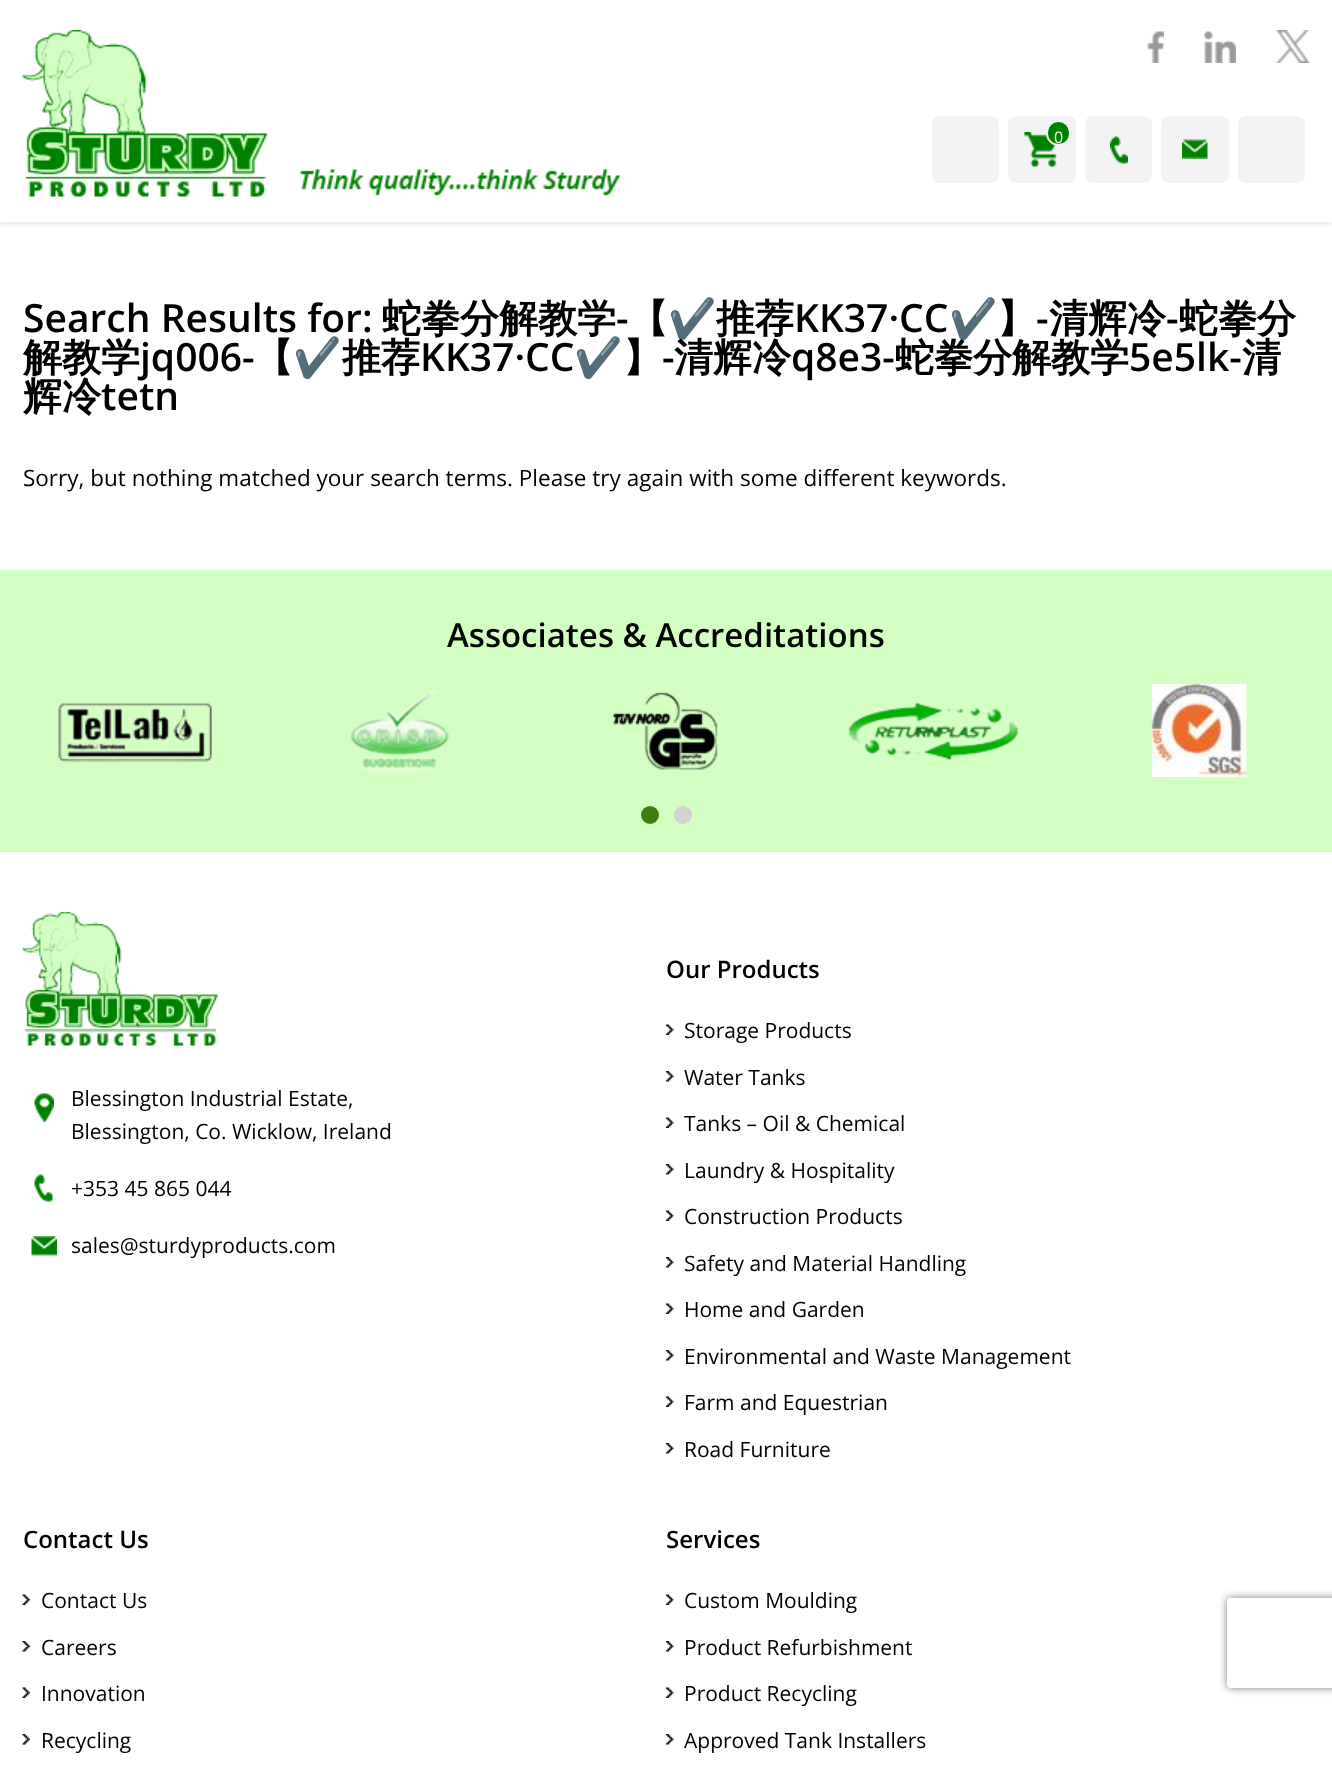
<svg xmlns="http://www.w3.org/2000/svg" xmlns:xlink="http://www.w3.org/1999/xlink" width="1332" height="1772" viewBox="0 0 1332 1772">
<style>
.cls-1{font:16px Open Sans;fill:#ffffff}
.cls-2{font:600 39px Open Sans;fill:#000000}
.cls-3{font:bold 39px WenQuanYi Zen Hei;fill:#000000}
.cls-4{font:bold 39px Noto Color Emoji;fill:#000000}
.cls-5{font:22.5px Open Sans;fill:#000000}
.cls-6{font:600 33px Open Sans;fill:#000000}
.cls-7{font:21px Open Sans;fill:#000000}
.cls-8{font:600 24px Open Sans;fill:#000000}
</style>
<defs>
<clipPath id="clip1"><rect x="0" y="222" width="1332" height="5"/></clipPath>
<clipPath id="clip2"><path d="M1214 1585H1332V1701H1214ZM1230 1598H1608C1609.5 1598 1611 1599.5 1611 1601V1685C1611 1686.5 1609.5 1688 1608 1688H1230C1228.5 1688 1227 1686.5 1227 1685V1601C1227 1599.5 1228.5 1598 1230 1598Z" clip-rule="evenodd"/></clipPath>
</defs>
<rect width="100%" height="100%" fill="#ffffff"/>
<g clip-path="url(#clip1)">
<rect fill="#323232" fill-opacity="0.1" filter="blur(2px)" x="0" y="3" width="1332" height="222"/>
</g>
<image xlink:href="image0.png" x="22" y="30" width="599" height="167"/>
<image xlink:href="image1.png" x="1147" y="31" width="17" height="32"/>
<image xlink:href="image2.png" x="1204" y="31" width="32" height="32"/>
<image xlink:href="image3.png" x="1276" y="30" width="34" height="33"/>
<rect fill="#f2f2f2" x="932" y="116" width="67" height="67" rx="8"/>
<rect fill="#f2f2f2" x="1008" y="116" width="68" height="67" rx="8"/>
<image xlink:href="image4.png" x="1024" y="132" width="33" height="35"/>
<rect fill="#008000" stroke="#f2f2f2" stroke-width="2" x="1047" y="121" width="23" height="24" rx="11.5"/>
<rect fill="#f2f2f2" x="1085" y="116" width="67" height="67" rx="8"/>
<image xlink:href="image5.png" x="1110" y="136" width="18" height="28"/>
<rect fill="#f2f2f2" x="1161" y="116" width="68" height="67" rx="8"/>
<image xlink:href="image6.png" x="1182" y="139" width="26" height="20"/>
<rect fill="#f2f2f2" x="1238" y="116" width="67" height="67" rx="8"/>
<rect fill="#d4ffc2" x="0" y="570" width="1332" height="282"/>
<image xlink:href="image7.png" x="58" y="703" width="155" height="60"/>
<image xlink:href="image8.png" x="340" y="684" width="117" height="87"/>
<image xlink:href="image9.png" x="613" y="692" width="105" height="78"/>
<image xlink:href="image10.png" x="848" y="702" width="171" height="59"/>
<image xlink:href="image11.png" x="1151" y="684" width="96" height="93"/>
<circle fill="#3a800d" cx="650" cy="815" r="9"/>
<circle fill="#d4d2d2" cx="683" cy="815" r="9"/>
<image xlink:href="image12.png" x="22" y="912" width="196" height="134"/>
<image xlink:href="image13.png" x="34" y="1093" width="20" height="29"/>
<image xlink:href="image14.png" x="34" y="1174" width="19" height="28"/>
<image xlink:href="image15.png" x="31" y="1236" width="26" height="20"/>
<image xlink:href="image16.png" x="666" y="1024" width="8" height="11"/>
<image xlink:href="image17.png" x="666" y="1071" width="8" height="11"/>
<image xlink:href="image16.png" x="666" y="1117" width="8" height="11"/>
<image xlink:href="image17.png" x="666" y="1164" width="8" height="11"/>
<image xlink:href="image16.png" x="666" y="1210" width="8" height="11"/>
<image xlink:href="image17.png" x="666" y="1257" width="8" height="11"/>
<image xlink:href="image16.png" x="666" y="1303" width="8" height="11"/>
<image xlink:href="image17.png" x="666" y="1350" width="8" height="11"/>
<image xlink:href="image16.png" x="666" y="1396" width="8" height="11"/>
<image xlink:href="image17.png" x="666" y="1443" width="8" height="11"/>
<image xlink:href="image18.png" x="22" y="1594" width="8" height="11"/>
<image xlink:href="image19.png" x="22" y="1641" width="8" height="11"/>
<image xlink:href="image18.png" x="22" y="1687" width="8" height="11"/>
<image xlink:href="image19.png" x="22" y="1734" width="8" height="11"/>
<image xlink:href="image16.png" x="666" y="1594" width="8" height="11"/>
<image xlink:href="image17.png" x="666" y="1641" width="8" height="11"/>
<image xlink:href="image16.png" x="666" y="1687" width="8" height="11"/>
<image xlink:href="image17.png" x="666" y="1734" width="8" height="11"/>
<g clip-path="url(#clip2)">
<rect fill="#808080" filter="blur(4px)" x="1227" y="1598" width="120" height="90" rx="3"/>
</g>
<text class="cls-1" x="1054" y="143">0</text>
<text class="cls-2" x="23" y="332">Search Results for:</text>
<text class="cls-3" x="382" y="332">蛇拳分解教学</text>
<text class="cls-2" x="616" y="332">-</text>
<text class="cls-3" x="629" y="332">【</text>
<text class="cls-4" x="668" y="332">✔️</text>
<text class="cls-3" x="716" y="332">推荐</text>
<text class="cls-2" x="794" y="332">KK37·CC</text>
<text class="cls-4" x="949" y="332">✔️</text>
<text class="cls-3" x="997" y="332">】</text>
<text class="cls-2" x="1036" y="332">-</text>
<text class="cls-3" x="1049" y="332">清辉冷</text>
<text class="cls-2" x="1166" y="332">-</text>
<text class="cls-3" x="1179" y="332">蛇拳分</text>
<text class="cls-3" x="23" y="371">解教学</text>
<text class="cls-2" x="140" y="371">jq006-</text>
<text class="cls-3" x="254" y="371">【</text>
<text class="cls-4" x="293" y="371">✔️</text>
<text class="cls-3" x="342" y="371">推荐</text>
<text class="cls-2" x="420" y="371">KK37·CC</text>
<text class="cls-4" x="574" y="371">✔️</text>
<text class="cls-3" x="623" y="371">】</text>
<text class="cls-2" x="662" y="371">-</text>
<text class="cls-3" x="674" y="371">清辉冷</text>
<text class="cls-2" x="791" y="371">q8e3-</text>
<text class="cls-3" x="895" y="371">蛇拳分解教学</text>
<text class="cls-2" x="1129" y="371">5e5lk-</text>
<text class="cls-3" x="1242" y="371">清</text>
<text class="cls-3" x="23" y="410">辉冷</text>
<text class="cls-2" x="101" y="410">tetn</text>
<text class="cls-5" x="23" y="486">Sorry, but nothing matched your search terms. Please try again with some different keywords.</text>
<text class="cls-6" x="447" y="647">Associates &amp; Accreditations</text>
<text class="cls-7"><tspan x="71" y="1106">Blessington Industrial Estate,</tspan><tspan x="71" y="1139">Blessington, Co. Wicklow, Ireland</tspan></text>
<text class="cls-7" x="71" y="1196">+353 45 865 044</text>
<text class="cls-7" x="71" y="1253">sales@sturdyproducts.com</text>
<text class="cls-8" x="666" y="978">Our Products</text>
<text class="cls-7" x="684" y="1038">Storage Products</text>
<text class="cls-7" x="684" y="1085">Water Tanks</text>
<text class="cls-7" x="684" y="1131">Tanks – Oil &amp; Chemical</text>
<text class="cls-7" x="684" y="1178">Laundry &amp; Hospitality</text>
<text class="cls-7" x="684" y="1224">Construction Products</text>
<text class="cls-7" x="684" y="1271">Safety and Material Handling</text>
<text class="cls-7" x="684" y="1317">Home and Garden</text>
<text class="cls-7" x="684" y="1364">Environmental and Waste Management</text>
<text class="cls-7" x="684" y="1410">Farm and Equestrian</text>
<text class="cls-7" x="684" y="1457">Road Furniture</text>
<text class="cls-8" x="23" y="1548">Contact Us</text>
<text class="cls-7" x="41" y="1608">Contact Us</text>
<text class="cls-7" x="41" y="1655">Careers</text>
<text class="cls-7" x="41" y="1701">Innovation</text>
<text class="cls-7" x="41" y="1748">Recycling</text>
<text class="cls-8" x="666" y="1548">Services</text>
<text class="cls-7" x="684" y="1608">Custom Moulding</text>
<text class="cls-7" x="684" y="1655">Product Refurbishment</text>
<text class="cls-7" x="684" y="1701">Product Recycling</text>
<text class="cls-7" x="684" y="1748">Approved Tank Installers</text>
</svg>
